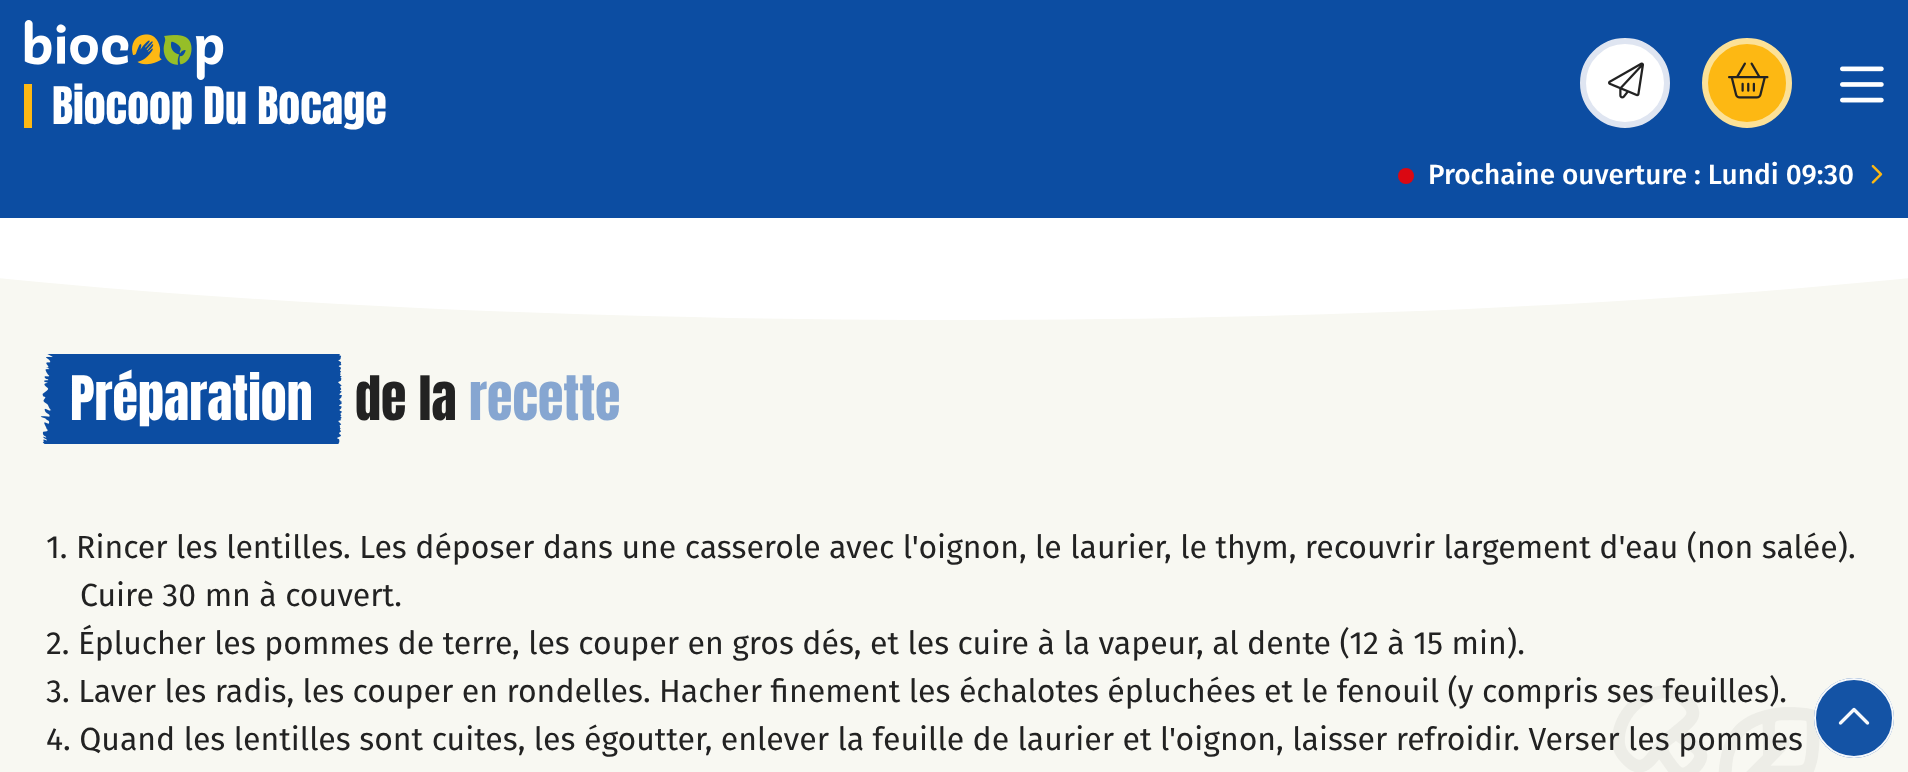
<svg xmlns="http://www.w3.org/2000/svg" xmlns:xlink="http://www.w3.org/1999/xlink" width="1908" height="772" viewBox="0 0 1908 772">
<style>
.cls-1{font:44px Anton;fill:#ffffff}
.cls-2{font:500 28px Fira Sans;fill:#ffffff}
.cls-3{font:52px Anton;fill:#ffffff}
.cls-4{font:52px Anton;fill:#222222}
.cls-5{font:52px Anton;fill:#86a6d1}
.cls-6{font:32px Fira Sans;fill:#222222}
</style>
<rect width="100%" height="100%" fill="#f8f8f2"/>
<ellipse fill="#ffffff" cx="953.5" cy="130" rx="1526" ry="190"/>
<rect fill="#0c4da2" x="0" y="0" width="1908" height="218"/>
<image xlink:href="image0.png" x="24" y="20" width="200" height="60"/>
<rect fill="#fdb813" x="24" y="84" width="8" height="44"/>
<circle fill="#ffffff" stroke="#dfe5f1" stroke-width="6" cx="1625" cy="83" r="42"/>
<image xlink:href="image1.png" x="1608" y="62" width="36" height="37"/>
<circle fill="#fdb813" stroke="#fce197" stroke-width="6" cx="1747" cy="83" r="42"/>
<image xlink:href="image2.png" x="1728" y="62" width="41" height="37"/>
<image xlink:href="image3.png" x="1840" y="66" width="44" height="37"/>
<circle fill="#da0812" cx="1406" cy="176" r="8"/>
<image xlink:href="image4.png" x="1871" y="164" width="12" height="20"/>
<image xlink:href="image6.png" x="40" y="354" width="302" height="90"/>
<text class="cls-1" x="52" y="124">Biocoop Du Bocage</text>
<text class="cls-2" x="1428" y="184">Prochaine ouverture : Lundi 09:30</text>
<text class="cls-3" x="70" y="420">Préparation</text>
<text class="cls-4" x="355" y="420">de la</text>
<text class="cls-5" x="469" y="420">recette</text>
<text class="cls-6" x="46" y="558">1. Rincer les lentilles. Les déposer dans une casserole avec l'oignon, le laurier, le thym, recouvrir largement d'eau (non salée).</text>
<text class="cls-6" x="80" y="606">Cuire 30 mn à couvert.</text>
<text class="cls-6"><tspan x="46" y="654">2. Éplucher les pommes de terre, les couper en gros dés, et les cuire à la vapeur, al dente (12 à 15 min).</tspan><tspan x="46" y="702">3. Laver les radis, les couper en rondelles. Hacher finement les échalotes épluchées et le fenouil (y compris ses feuilles).</tspan><tspan x="46" y="750">4. Quand les lentilles sont cuites, les égoutter, enlever la feuille de laurier et l'oignon, laisser refroidir. Verser les pommes</tspan></text>
<image xlink:href="image7.png" x="1612" y="685" width="208" height="87"/>
<circle fill="#0c4da2" fill-opacity="0.97" cx="1854" cy="718" r="40"/>
<circle fill="none" stroke="#ffffff" stroke-opacity="0.97" stroke-width="2" cx="1854" cy="718" r="39"/>
<image xlink:href="image5.png" x="1838" y="707" width="32" height="18"/>
</svg>
